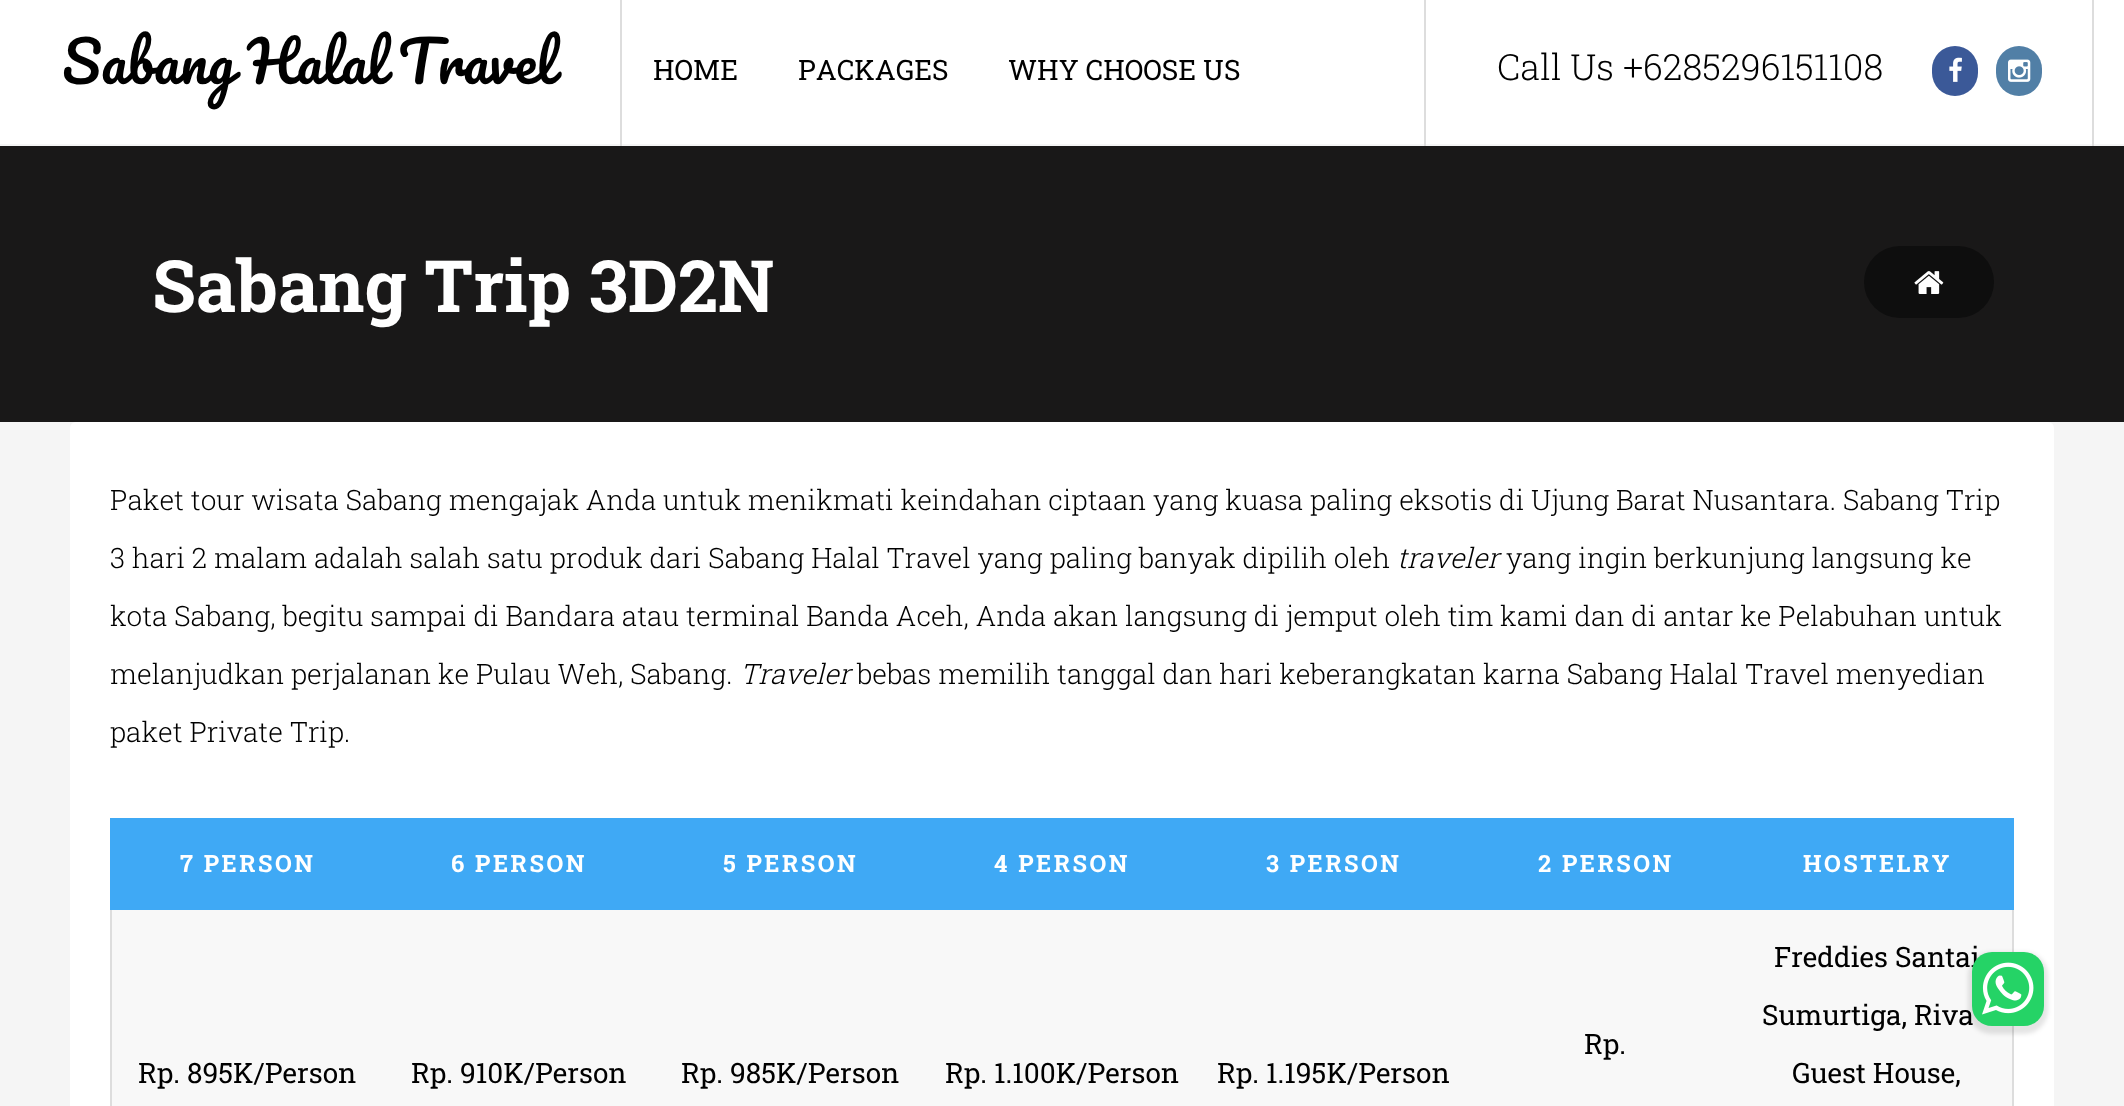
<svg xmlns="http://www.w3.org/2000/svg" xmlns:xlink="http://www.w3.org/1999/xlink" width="2124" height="1106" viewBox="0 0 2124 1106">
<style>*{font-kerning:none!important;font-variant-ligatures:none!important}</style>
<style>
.cls-1{font:56px Pacifico;fill:#000000}
.cls-2{font:28px Roboto Slab;fill:#000000}
.cls-3{font:300 36px Roboto Slab;fill:#000000}
.cls-4{font:bold 72px Roboto Slab;fill:#ffffff}
.cls-5{font:300 28px Roboto Slab;fill:#000000}
.cls-6{font:italic 300 28px Roboto Slab;fill:#000000}
.cls-7{font:bold 23.75px Roboto Slab;letter-spacing:2.5px;fill:#ffffff}
</style>
<rect width="100%" height="100%" fill="#f5f5f5"/>
<rect fill="#ffffff" x="0" y="0" width="2124" height="144"/>
<rect fill="#dddddd" x="620" y="0" width="2" height="146"/>
<rect fill="#dddddd" x="2092" y="0" width="2" height="146"/>
<rect fill="#dddddd" x="1424" y="0" width="2" height="146"/>
<rect fill="#3b5998" x="1932" y="46" width="46" height="50" rx="23"/>
<image xlink:href="image0.png" x="1949" y="57" width="13" height="25"/>
<rect fill="#517fa6" x="1996" y="46" width="46" height="50" rx="23"/>
<image xlink:href="image1.png" x="2008" y="59" width="23" height="23"/>
<rect fill="#191818" x="0" y="146" width="2124" height="276"/>
<rect fill="#0e0e0e" x="1864" y="246" width="130" height="72" rx="36"/>
<image xlink:href="image2.png" x="1914" y="271" width="30" height="23"/>
<rect fill="#ffffff" x="70" y="422" width="1984" height="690" rx="6"/>
<rect fill="#3fa9f5" x="112" y="820" width="1900" height="88"/>
<rect fill="#3fa9f5" x="110" y="818" width="1904" height="2"/>
<rect fill="#dddddd" x="2012" y="908" width="2" height="198"/>
<rect fill="#3fa9f5" x="2012" y="818" width="2" height="92"/>
<rect fill="#dddddd" x="110" y="908" width="2" height="198"/>
<rect fill="#3fa9f5" x="110" y="908" width="1904" height="2"/>
<rect fill="#3fa9f5" x="110" y="818" width="2" height="92"/>
<rect fill="#f8f8f8" x="112" y="910" width="1900" height="196"/>
<rect fill="#000000" fill-opacity="0.1" filter="blur(2px)" x="1968" y="952" width="80" height="82" rx="24"/>
<text class="cls-1" x="62" y="84" word-spacing="-2">Sabang Halal Travel</text>
<text class="cls-2" x="653" y="80">HOME</text>
<text class="cls-2" x="798" y="80">PACKAGES</text>
<text class="cls-2" x="1008" y="80">WHY CHOOSE US</text>
<text class="cls-3" x="1497" y="80">Call Us +6285296151108</text>
<text class="cls-4" x="152" y="312">Sabang Trip 3D2N</text>
<text class="cls-5" x="110" y="510">Paket tour wisata Sabang mengajak Anda untuk menikmati keindahan ciptaan yang kuasa paling eksotis di Ujung Barat Nusantara. Sabang Trip</text>
<text class="cls-5" x="110" y="568">3 hari 2 malam adalah salah satu produk dari Sabang Halal Travel yang paling banyak dipilih oleh</text>
<text class="cls-6" x="1397" y="568">traveler</text>
<text class="cls-5" x="1506" y="568">yang ingin berkunjung langsung ke</text>
<text class="cls-5" x="110" y="626">kota Sabang, begitu sampai di Bandara atau terminal Banda Aceh, Anda akan langsung di jemput oleh tim kami dan di antar ke Pelabuhan untuk</text>
<text class="cls-5" x="110" y="684">melanjudkan perjalanan ke Pulau Weh, Sabang.</text>
<text class="cls-6" x="740" y="684">Traveler</text>
<text class="cls-5" x="857" y="684">bebas memilih tanggal dan hari keberangkatan karna Sabang Halal Travel menyedian</text>
<text class="cls-5" x="110" y="742">paket Private Trip.</text>
<text class="cls-7" x="180" y="872">7 PERSON</text>
<text class="cls-7" x="451" y="872">6 PERSON</text>
<text class="cls-7" x="723" y="872">5 PERSON</text>
<text class="cls-7" x="994" y="872">4 PERSON</text>
<text class="cls-7" x="1266" y="872">3 PERSON</text>
<text class="cls-7" x="1538" y="872">2 PERSON</text>
<text class="cls-7" x="1803" y="872">HOSTELRY</text>
<text class="cls-2" x="1584" y="1054">Rp.</text>
<text class="cls-2" x="1774" y="967">Freddies Santai</text>
<text class="cls-2" x="1762" y="1025">Sumurtiga, Riva</text>
<text class="cls-2" x="1792" y="1083">Guest House,</text>
<text class="cls-2" x="138" y="1083">Rp. 895K/Person</text>
<text class="cls-2" x="411" y="1083">Rp. 910K/Person</text>
<text class="cls-2" x="681" y="1083">Rp. 985K/Person</text>
<text class="cls-2" x="945" y="1083">Rp. 1.100K/Person</text>
<text class="cls-2" x="1217" y="1083">Rp. 1.195K/Person</text>
<rect fill="#25d366" x="1972" y="952" width="72" height="74" rx="20"/>
<image xlink:href="image3.png" x="1982" y="962" width="52" height="53"/>
</svg>
